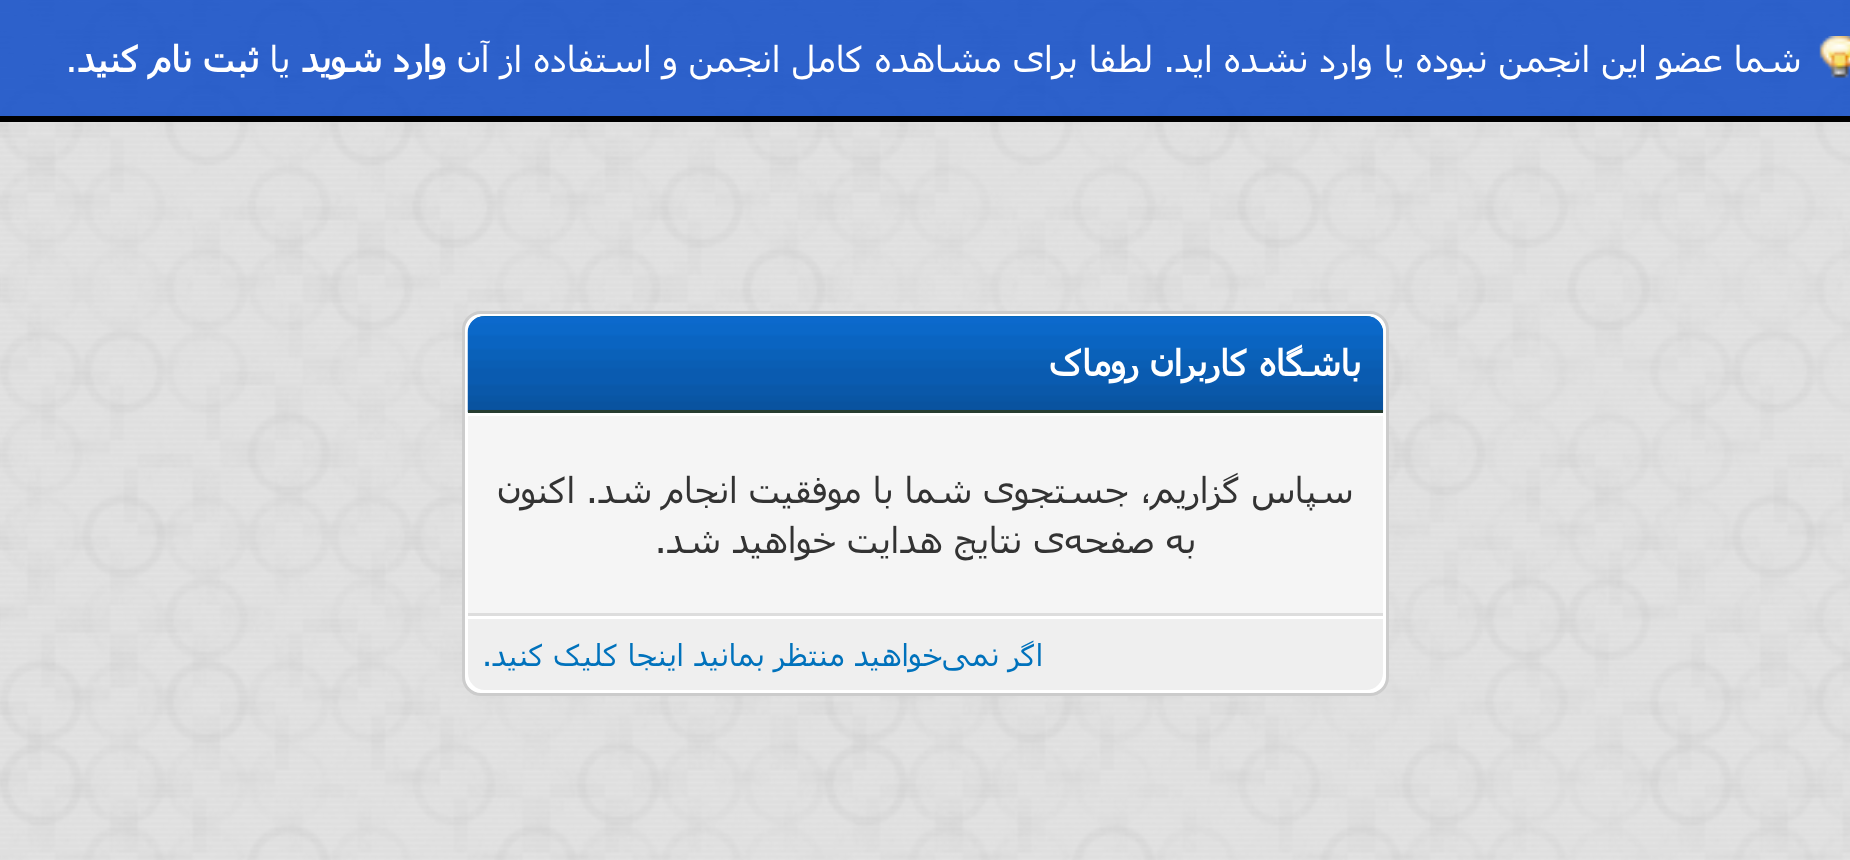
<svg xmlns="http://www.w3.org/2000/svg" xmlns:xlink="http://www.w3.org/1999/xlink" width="1850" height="860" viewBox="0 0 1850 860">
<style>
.cls-1{font:35.75px Tahoma;direction:rtl;fill:#ffffff}
.cls-2{font:bold 35.75px Tahoma;direction:rtl;fill:#ffffff}
.cls-3{font:35.75px Tahoma;fill:#ffffff}
.cls-4{font:35.75px Tahoma;direction:rtl;fill:#333333}
.cls-5{font:30.25px Tahoma;direction:rtl;fill:#0072bc}
</style>
<rect width="100%" height="100%" fill="#ffffff"/>
<image xlink:href="image0.png" x="0" y="0" width="1850" height="860"/>
<rect fill="#0041c6" fill-opacity="0.8" x="0" y="0" width="1850" height="116"/>
<rect fill="#000000" x="0" y="116" width="1850" height="6"/>
<image xlink:href="image1.png" x="1819" y="36" width="31" height="42"/>
<rect fill="#ffffff" stroke="#cccccc" stroke-width="3" x="463.5" y="312.5" width="924" height="382" rx="17.5"/>
<path fill="#0066a2" d="M485 316H1366C1375.5 316 1383 323.5 1383 333V413H468V333C468 323.5 475.5 316 485 316Z"/>
<image xlink:href="image2.png" x="467" y="316" width="917" height="97"/>
<rect fill="#263c30" x="468" y="410" width="915" height="3"/>
<rect fill="#f5f5f5" x="468" y="416" width="915" height="197"/>
<rect fill="#dddddd" x="468" y="613" width="915" height="3"/>
<path fill="#efefef" d="M468 616H1383V673C1383 682.5 1375.5 690 1366 690H485C475.5 690 468 682.5 468 673Z"/>
<rect fill="#ffffff" x="468" y="616" width="915" height="3"/>
<text class="cls-1" x="1801" y="72">شما عضو این انجمن نبوده یا وارد نشده اید. لطفا برای مشاهده کامل انجمن و استفاده از آن</text>
<text class="cls-2" x="446" y="72">وارد شوید</text>
<text class="cls-1" x="290" y="72">یا</text>
<text class="cls-2" x="259" y="72">ثبت نام کنید</text>
<text class="cls-3" x="66" y="72">.</text>
<text class="cls-2" x="1361" y="376">باشگاه کاربران روماک</text>
<text class="cls-4" x="1353" y="503">سپاس گزاریم، جستجوی شما با موفقیت انجام شد. اکنون</text>
<text class="cls-4" x="1196" y="553">به صفحه‌ی نتایج هدایت خواهید شد.</text>
<text class="cls-5" x="1043" y="666">اگر نمی‌خواهید منتظر بمانید اینجا کلیک کنید.</text>
</svg>
